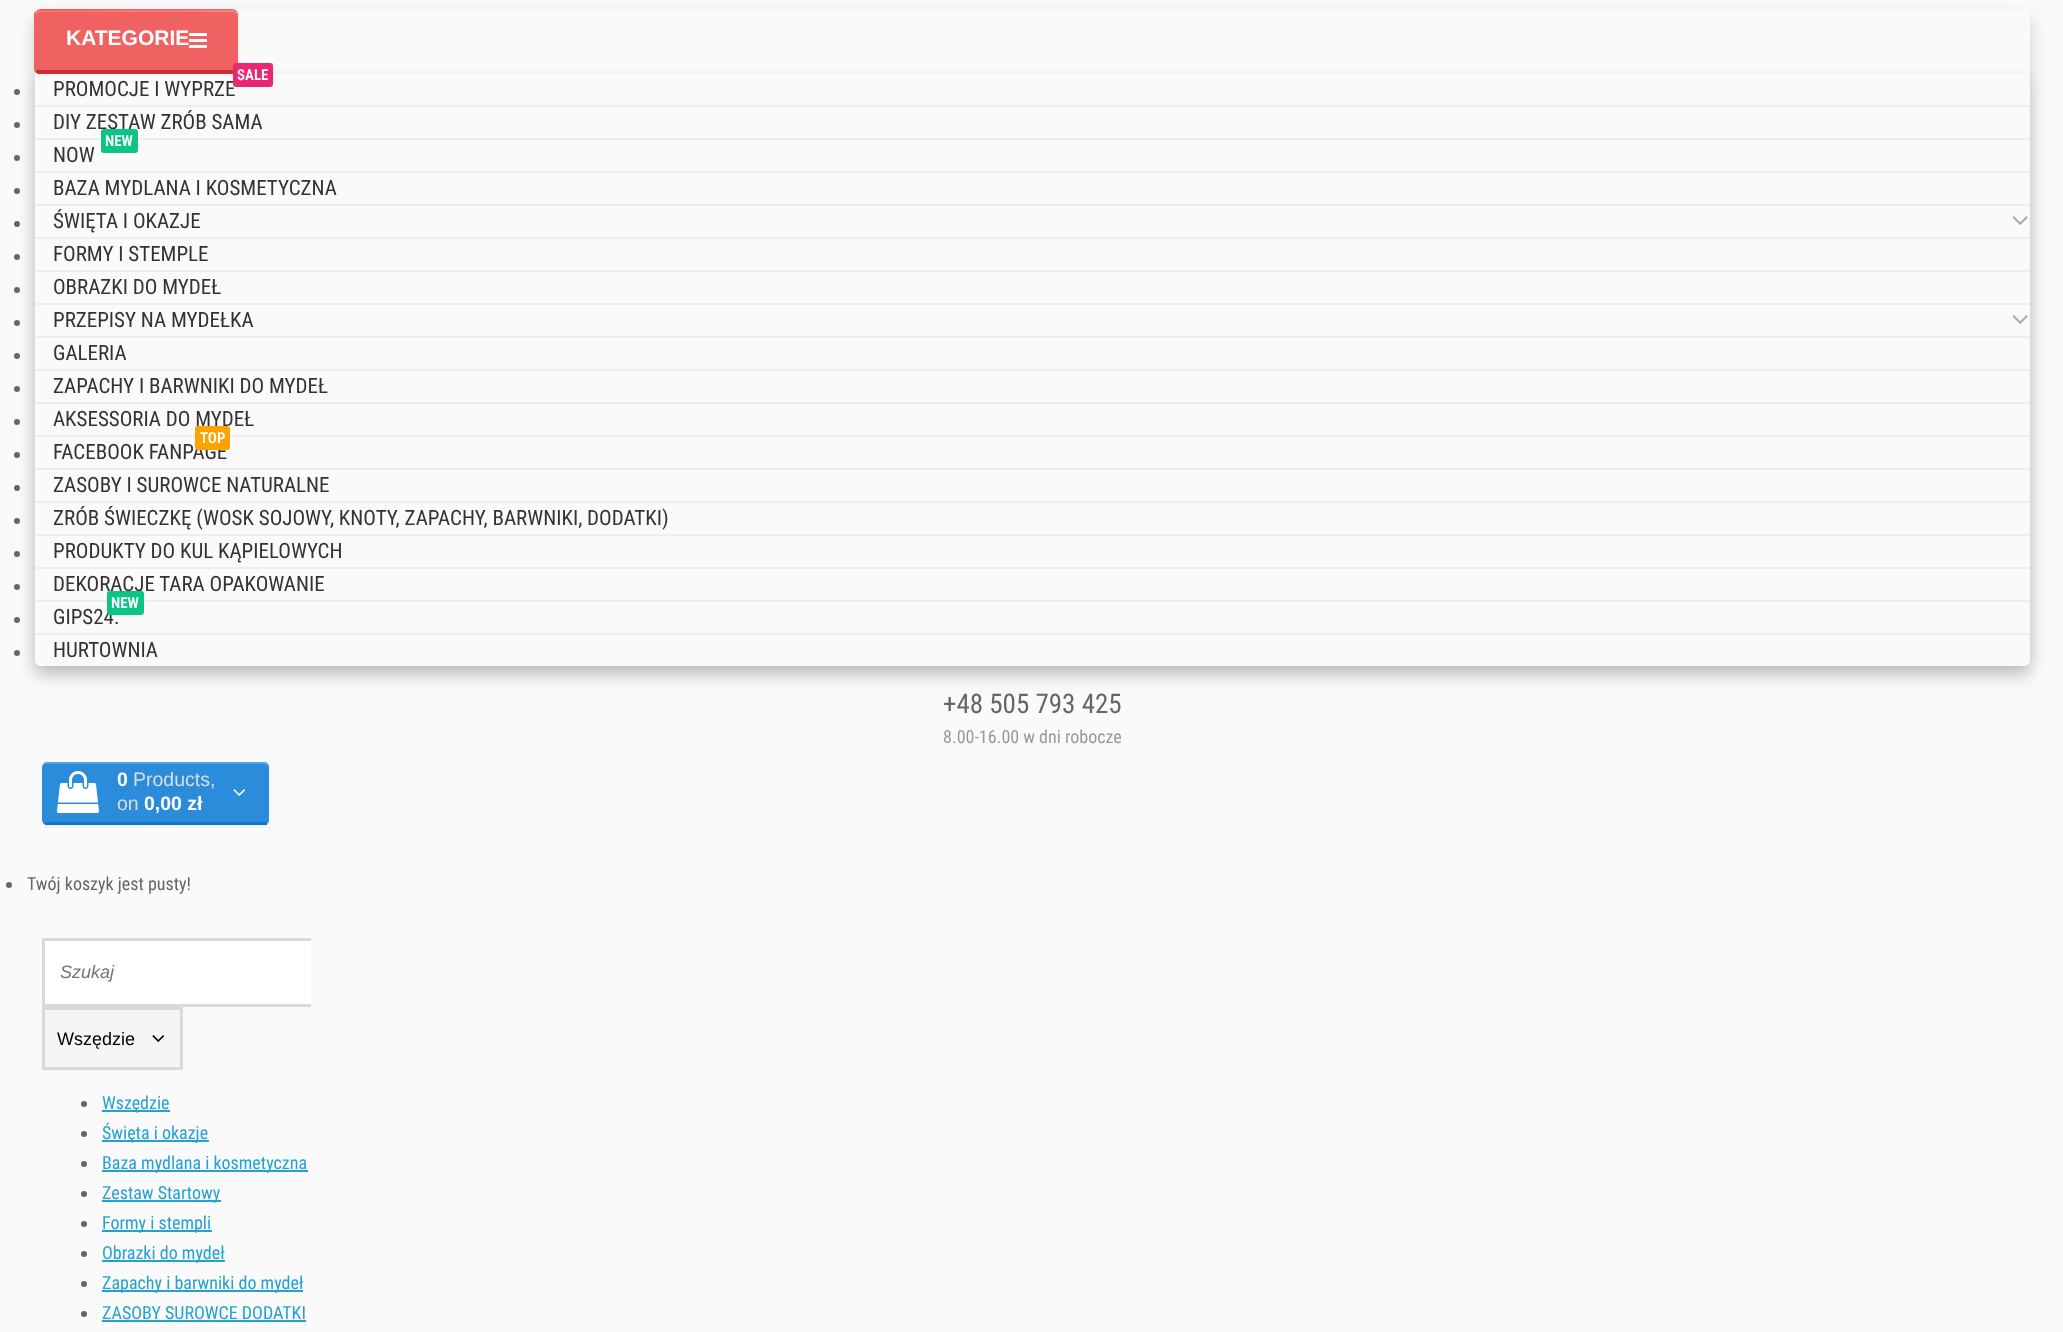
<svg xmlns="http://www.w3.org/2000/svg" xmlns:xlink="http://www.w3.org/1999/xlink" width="2063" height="1332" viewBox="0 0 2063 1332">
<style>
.cls-1{font:bold 21px Liberation Sans;fill:#ffffff}
.cls-2{font:21px Roboto Condensed;fill:#333333}
.cls-3{font:600 15px Roboto Condensed;fill:#ffffff}
.cls-4{font:27px Roboto Condensed;fill:#666666}
.cls-5{font:18px Roboto Condensed;fill:#999999}
.cls-6{font:bold 19.5px Liberation Sans;fill:#ffffff}
.cls-7{font:19.5px Liberation Sans;fill:#dddddd}
.cls-8{font:18px Roboto Condensed;fill:#666666}
.cls-9{font:italic 18px Liberation Sans;fill:#757575}
.cls-10{font:18px Liberation Sans;fill:#000000}
.cls-11{font:18px Roboto Condensed;fill:#23a1d1}
</style>
<defs>
<clipPath id="clip1"><path d="M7 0H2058V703H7ZM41 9H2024C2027.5 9 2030 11.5 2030 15V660C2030 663.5 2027.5 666 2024 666H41C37.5 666 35 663.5 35 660V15C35 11.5 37.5 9 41 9Z" clip-rule="evenodd"/></clipPath>
<clipPath id="clip2"><path d="M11 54H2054V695H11ZM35 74H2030V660C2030 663.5 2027.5 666 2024 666H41C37.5 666 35 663.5 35 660Z" clip-rule="evenodd"/></clipPath>
</defs>
<rect width="100%" height="100%" fill="#fafafa"/>
<g clip-path="url(#clip1)">
<rect fill="#000000" fill-opacity="0.18" filter="blur(9px)" x="35" y="18" width="1995" height="657" rx="6"/>
</g>
<rect fill="#000000" fill-opacity="0.05" filter="blur(1.5px)" x="35" y="11" width="204" height="64" rx="6"/>
<g clip-path="url(#clip2)">
<rect fill="#000000" fill-opacity="0.1" filter="blur(7.5px)" x="35" y="78" width="1995" height="593" rx="6"/>
</g>
<path fill="#f06262" d="M40 10H232C235 10 237 13 237 15V68C237 69 235 70 232 70H40C38 70 36 69 36 68V15C36 13 38 10 40 10Z"/>
<path fill="#ffffff" fill-opacity="0.2" d="M40 12H232C235 12 237 14 237 16C237 13 236 11 232 10L40 11C37 11 36 14 36 16C36 14 38 12 40 12Z"/>
<path fill="#f06262" d="M40 9C39 9 37 10 36 11L37 12C38 11 39 10 40 10H233L236 12L237 11C236 10 234 9 232 9Z"/>
<path fill="#f06262" d="M237 11L238 14V59C238 61 239 68 237 71L236 69L237 68V15C237 14 237 13 236 12Z"/>
<path fill="#ca3030" d="M38 74L35 72L37 69L40 70H232L236 69L237 71L235 74Z"/>
<path fill="#f06262" d="M34 13L36 11L37 12C36 13 36 14 36 15V68L37 69L35 72L34 70Z"/>
<image xlink:href="image0.png" x="189" y="33" width="18" height="15"/>
<circle fill="#666666" cx="17" cy="92" r="3"/>
<rect fill="#eeeeee" x="35" y="105" width="1995" height="2"/>
<circle fill="#666666" cx="17" cy="125" r="3"/>
<rect fill="#eeeeee" x="35" y="138" width="1995" height="2"/>
<circle fill="#666666" cx="17" cy="158" r="3"/>
<rect fill="#eeeeee" x="35" y="171" width="1995" height="2"/>
<circle fill="#666666" cx="17" cy="191" r="3"/>
<rect fill="#eeeeee" x="35" y="204" width="1995" height="2"/>
<circle fill="#666666" cx="17" cy="224" r="3"/>
<image xlink:href="image1.png" x="2012" y="216" width="16" height="9"/>
<rect fill="#eeeeee" x="35" y="237" width="1995" height="2"/>
<circle fill="#666666" cx="17" cy="257" r="3"/>
<rect fill="#eeeeee" x="35" y="270" width="1995" height="2"/>
<circle fill="#666666" cx="17" cy="290" r="3"/>
<rect fill="#eeeeee" x="35" y="303" width="1995" height="2"/>
<circle fill="#666666" cx="17" cy="323" r="3"/>
<image xlink:href="image1.png" x="2012" y="315" width="16" height="9"/>
<rect fill="#eeeeee" x="35" y="336" width="1995" height="2"/>
<circle fill="#666666" cx="17" cy="356" r="3"/>
<rect fill="#eeeeee" x="35" y="369" width="1995" height="2"/>
<circle fill="#666666" cx="17" cy="389" r="3"/>
<rect fill="#eeeeee" x="35" y="402" width="1995" height="2"/>
<circle fill="#666666" cx="17" cy="422" r="3"/>
<rect fill="#eeeeee" x="35" y="435" width="1995" height="2"/>
<circle fill="#666666" cx="17" cy="455" r="3"/>
<rect fill="#eeeeee" x="35" y="468" width="1995" height="2"/>
<circle fill="#666666" cx="17" cy="488" r="3"/>
<rect fill="#eeeeee" x="35" y="501" width="1995" height="2"/>
<circle fill="#666666" cx="17" cy="521" r="3"/>
<rect fill="#eeeeee" x="35" y="534" width="1995" height="2"/>
<circle fill="#666666" cx="17" cy="554" r="3"/>
<rect fill="#eeeeee" x="35" y="567" width="1995" height="2"/>
<circle fill="#666666" cx="17" cy="587" r="3"/>
<rect fill="#eeeeee" x="35" y="600" width="1995" height="2"/>
<circle fill="#666666" cx="17" cy="620" r="3"/>
<rect fill="#eeeeee" x="35" y="633" width="1995" height="2"/>
<circle fill="#666666" cx="17" cy="653" r="3"/>
<rect fill="#000000" fill-opacity="0.05" filter="blur(1.5px)" x="42" y="764" width="227" height="63" rx="5"/>
<rect fill="#2b8cdb" x="42" y="762" width="227" height="63" rx="5"/>
<path fill="#ffffff" fill-opacity="0.2" d="M46 764H264C266 764 268 766 268 768V821V820V766C268 764 266 762 264 762H46C44 762 42 764 42 766V768C42 766 44 764 46 764Z"/>
<rect fill="#1475c4" x="45" y="822" width="222" height="3"/>
<image xlink:href="image2.png" x="57" y="771" width="42" height="42"/>
<image xlink:href="image3.png" x="233" y="789" width="12" height="7"/>
<circle fill="#666666" cx="9" cy="885" r="3"/>
<rect fill="#ffffff" x="45" y="941" width="266" height="63"/>
<rect fill="#d9d9d9" x="42" y="938" width="269" height="3"/>
<rect fill="#d9d9d9" x="42" y="1004" width="269" height="3"/>
<rect fill="#d9d9d9" x="42" y="938" width="3" height="69"/>
<rect fill="#f5f5f5" stroke="#d9d9d9" stroke-width="3" x="43.5" y="1008.5" width="138" height="60"/>
<image xlink:href="image4.png" x="152" y="1035" width="12" height="7"/>
<circle fill="#666666" cx="84" cy="1104" r="3"/>
<rect fill="#23a1d1" x="102" y="1110" width="68" height="2"/>
<circle fill="#666666" cx="84" cy="1134" r="3"/>
<rect fill="#23a1d1" x="102" y="1140" width="107" height="2"/>
<circle fill="#666666" cx="84" cy="1164" r="3"/>
<rect fill="#23a1d1" x="102" y="1170" width="206" height="2"/>
<circle fill="#666666" cx="84" cy="1194" r="3"/>
<rect fill="#23a1d1" x="102" y="1200" width="119" height="2"/>
<circle fill="#666666" cx="84" cy="1224" r="3"/>
<rect fill="#23a1d1" x="102" y="1230" width="110" height="2"/>
<circle fill="#666666" cx="84" cy="1254" r="3"/>
<rect fill="#23a1d1" x="102" y="1260" width="123" height="2"/>
<circle fill="#666666" cx="84" cy="1284" r="3"/>
<rect fill="#23a1d1" x="102" y="1290" width="201" height="2"/>
<circle fill="#666666" cx="84" cy="1314" r="3"/>
<rect fill="#23a1d1" x="102" y="1320" width="204" height="2"/>
<text class="cls-1" x="66" y="45">KATEGORIE</text>
<text class="cls-2" x="53" y="96">PROMOCJE I WYPRZE</text>
<rect fill="#eb2771" x="233" y="63" width="40" height="24" rx="3"/>
<text class="cls-3" x="237" y="80">SALE</text>
<text class="cls-2" x="53" y="129">DIY ZESTAW ZRÓB SAMA</text>
<rect fill="#0cc485" x="101" y="129" width="37" height="24" rx="3"/>
<text class="cls-3" x="105" y="146">NEW</text>
<text class="cls-2"><tspan x="53" y="162">NOW</tspan><tspan x="53" y="195">BAZA MYDLANA I KOSMETYCZNA</tspan><tspan x="53" y="228">ŚWIĘTA I OKAZJE</tspan><tspan x="53" y="261">FORMY I STEMPLE</tspan><tspan x="53" y="294">OBRAZKI DO MYDEŁ</tspan><tspan x="53" y="327">PRZEPISY NA MYDEŁKA</tspan><tspan x="53" y="360">GALERIA</tspan><tspan x="53" y="393">ZAPACHY I BARWNIKI DO MYDEŁ</tspan><tspan x="53" y="426">AKSESSORIA DO MYDEŁ</tspan><tspan x="53" y="459">FACEBOOK FANPAGE</tspan></text>
<rect fill="#ffa200" x="195" y="426" width="35" height="24" rx="3"/>
<text class="cls-3" x="200" y="443">TOP</text>
<text class="cls-2"><tspan x="53" y="492">ZASOBY I SUROWCE NATURALNE</tspan><tspan x="53" y="525">ZRÓB ŚWIECZKĘ (WOSK SOJOWY, KNOTY, ZAPACHY, BARWNIKI, DODATKI)</tspan><tspan x="53" y="558">PRODUKTY DO KUL KĄPIELOWYCH</tspan><tspan x="53" y="591">DEKORACJE TARA OPAKOWANIE</tspan><tspan x="53" y="624">GIPS24.</tspan></text>
<rect fill="#0cc485" x="107" y="591" width="37" height="24" rx="3"/>
<text class="cls-3" x="111" y="608">NEW</text>
<text class="cls-2" x="53" y="657">HURTOWNIA</text>
<text class="cls-4" x="943" y="713">+48 505 793 425</text>
<text class="cls-5" x="943" y="743">8.00-16.00 w dni robocze</text>
<text class="cls-6" x="117" y="786">0</text>
<text class="cls-7" x="133" y="786">Products,</text>
<text class="cls-7" x="117" y="810">on</text>
<text class="cls-6" x="144" y="810">0,00 zł</text>
<text class="cls-8" x="27" y="890">Twój koszyk jest pusty!</text>
<text class="cls-9" x="60" y="978">Szukaj</text>
<text class="cls-10" x="57" y="1045">Wszędzie</text>
<text class="cls-11"><tspan x="102" y="1109">Wszędzie</tspan><tspan x="102" y="1139">Święta i okazje</tspan><tspan x="102" y="1169">Baza mydlana i kosmetyczna</tspan><tspan x="102" y="1199">Zestaw Startowy</tspan><tspan x="102" y="1229">Formy i stempli</tspan><tspan x="102" y="1259">Obrazki do mydeł</tspan><tspan x="102" y="1289">Zapachy i barwniki do mydeł</tspan><tspan x="102" y="1319">ZASOBY SUROWCE DODATKI</tspan></text>
</svg>
